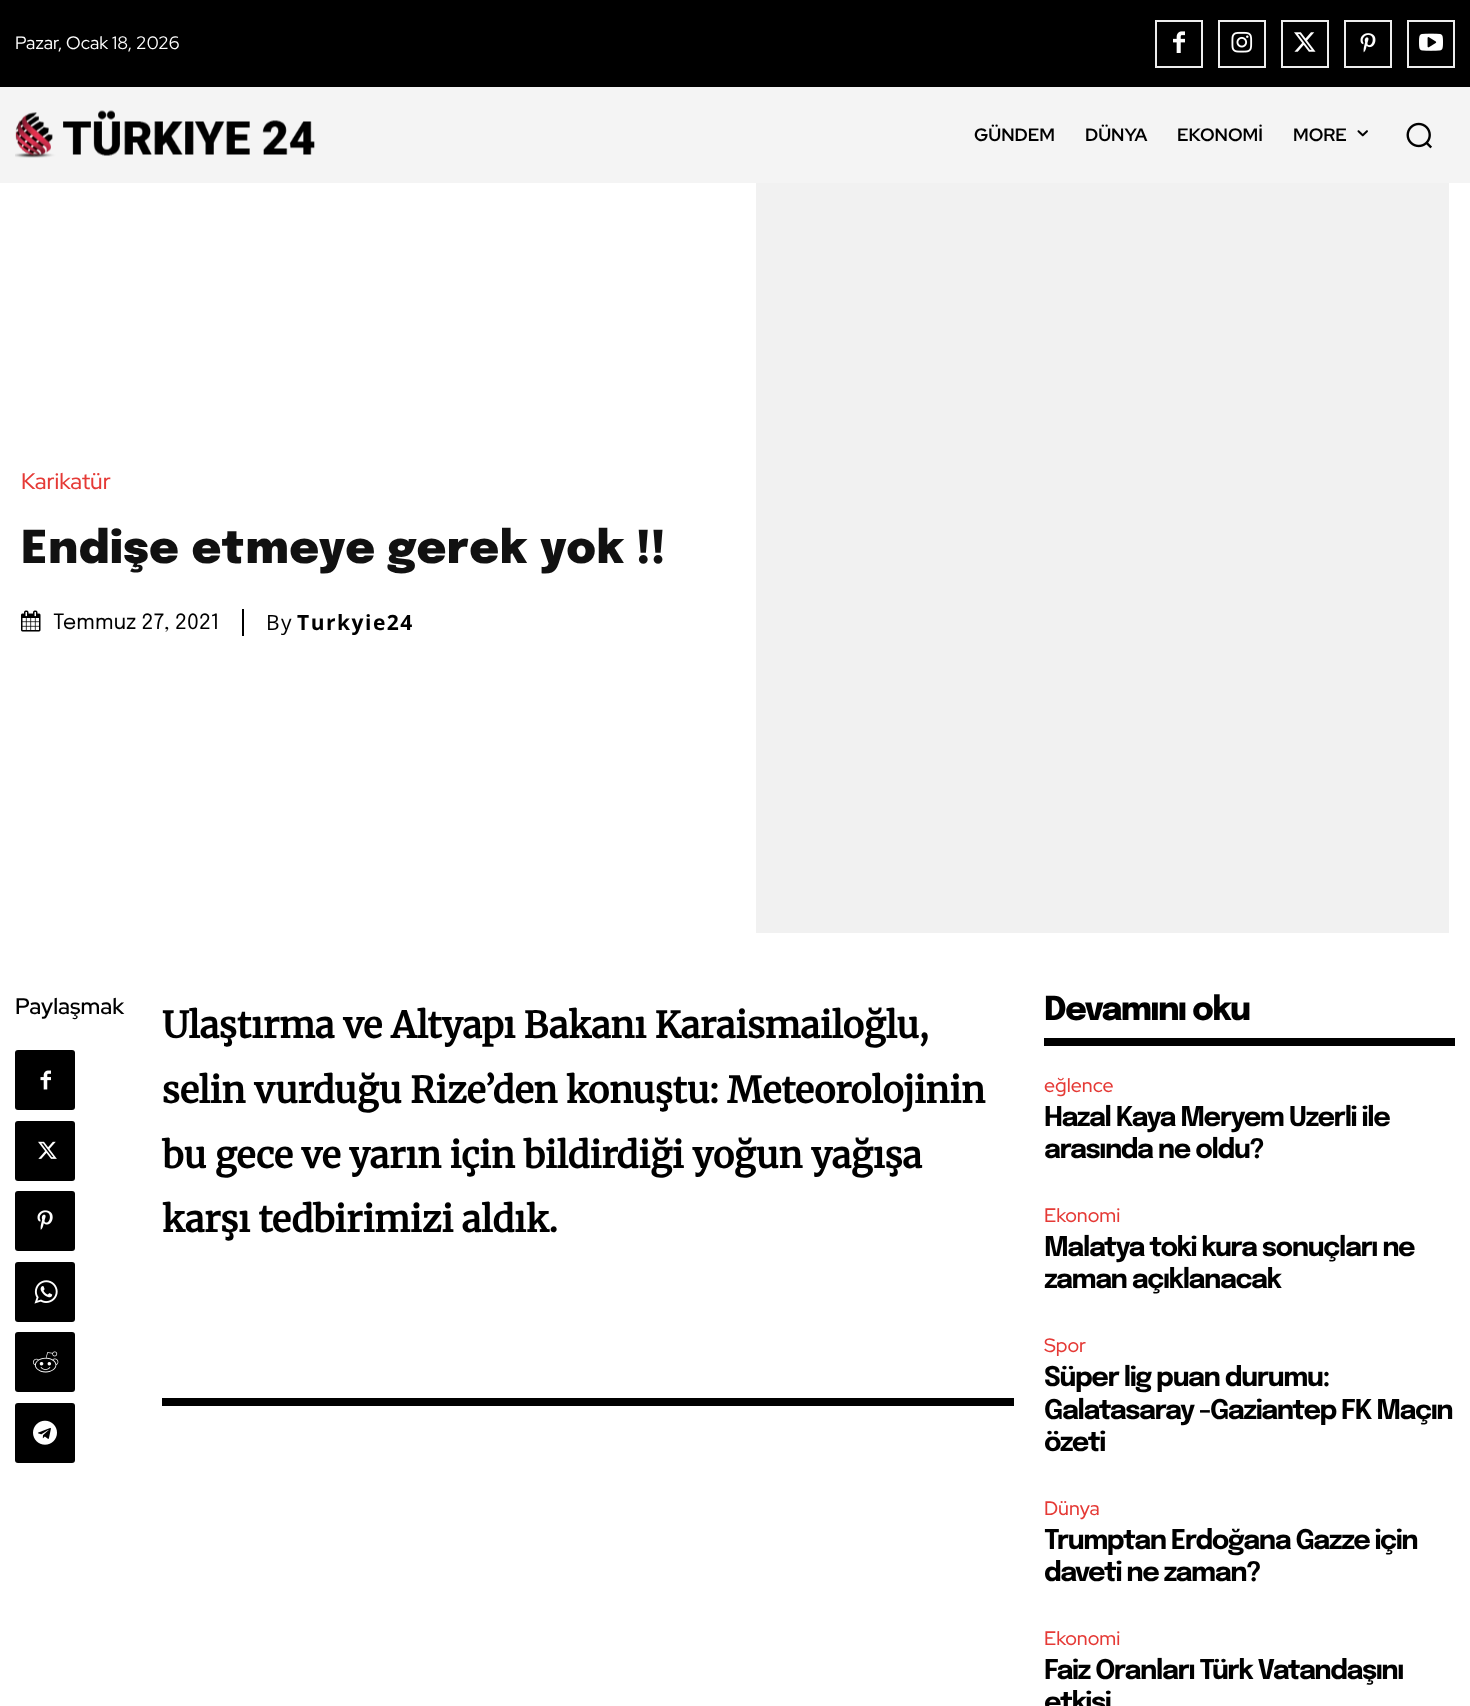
<svg xmlns="http://www.w3.org/2000/svg" xmlns:xlink="http://www.w3.org/1999/xlink" width="1470" height="1706" viewBox="0 0 1470 1706">
<style>
.cls-1{font:18px Red Hat Display;fill:#ffffff}
.cls-2{font:bold 18px Red Hat Display;fill:#000000}
.cls-3{font:500 22.5px Red Hat Display;fill:#e53a36}
.cls-4{font:900 45px Epilogue;letter-spacing:0.75px;fill:#111111}
.cls-5{font:21px Epilogue;fill:#000000}
.cls-6{font:21px Open Sans;letter-spacing:1.5px;fill:#000000}
.cls-7{font:bold 21px Open Sans;letter-spacing:1.5px;fill:#000000}
.cls-8{font:600 22.5px Red Hat Display;fill:#000000}
.cls-9{font:bold 36px Merriweather;fill:#000000}
.cls-10{font:800 33px Epilogue;letter-spacing:-1.5px;fill:#000000}
.cls-11{font:500 19.5px Red Hat Display;fill:#e53a36}
.cls-12{font:bold 27px Epilogue;letter-spacing:-1.5px;fill:#000000}
</style>
<rect width="100%" height="100%" fill="#ffffff"/>
<rect fill="#000000" x="0" y="0" width="1470" height="87"/>
<rect fill="none" stroke="#ededed" stroke-width="2" x="1156" y="21" width="46" height="46"/>
<image xlink:href="image0.png" x="1173" y="31" width="12" height="22"/>
<rect fill="none" stroke="#ededed" stroke-width="2" x="1219" y="21" width="46" height="46"/>
<image xlink:href="image1.png" x="1231" y="31" width="22" height="22"/>
<rect fill="none" stroke="#ededed" stroke-width="2" x="1282" y="21" width="46" height="46"/>
<image xlink:href="image2.png" x="1294" y="32" width="22" height="20"/>
<rect fill="none" stroke="#ededed" stroke-width="2" x="1345" y="21" width="46" height="46"/>
<image xlink:href="image3.png" x="1360" y="33" width="16" height="20"/>
<rect fill="none" stroke="#ededed" stroke-width="2" x="1408" y="21" width="46" height="46"/>
<image xlink:href="image4.png" x="1419" y="33" width="24" height="18"/>
<rect fill="#f4f4f4" x="0" y="87" width="1470" height="96"/>
<image xlink:href="image5.png" x="15" y="110" width="300" height="48"/>
<image xlink:href="image6.png" x="1357" y="130" width="11" height="7"/>
<image xlink:href="image7.png" x="1406" y="122" width="26" height="27"/>
<image xlink:href="image8.png" x="21" y="610" width="20" height="22"/>
<rect fill="#000000" x="242" y="609" width="2" height="27"/>
<rect fill="#f1f1f1" x="756" y="183" width="693" height="750"/>
<rect fill="#000000" x="15" y="1050" width="60" height="60" rx="3"/>
<image xlink:href="image9.png" x="40" y="1070" width="11" height="20"/>
<rect fill="#000000" x="15" y="1121" width="60" height="60" rx="3"/>
<image xlink:href="image10.png" x="38" y="1141" width="19" height="18"/>
<rect fill="#000000" x="15" y="1191" width="60" height="60" rx="3"/>
<image xlink:href="image11.png" x="37" y="1210" width="16" height="20"/>
<rect fill="#000000" x="15" y="1262" width="60" height="60" rx="3"/>
<image xlink:href="image12.png" x="34" y="1280" width="24" height="24"/>
<rect fill="#000000" x="15" y="1332" width="60" height="60" rx="3"/>
<image xlink:href="image13.png" x="33" y="1351" width="26" height="22"/>
<rect fill="#000000" x="15" y="1403" width="60" height="60" rx="3"/>
<image xlink:href="image14.png" x="33" y="1420" width="24" height="25"/>
<rect fill="#000000" x="162" y="1398" width="852" height="8"/>
<rect fill="#000000" x="1044" y="1038" width="411" height="8"/>
<text class="cls-1" x="15" y="49">Pazar, Ocak 18, 2026</text>
<text class="cls-2" x="974" y="141">GÜNDEM</text>
<text class="cls-2" x="1085" y="141">DÜNYA</text>
<text class="cls-2" x="1177" y="141">EKONOMİ</text>
<text class="cls-2" x="1293" y="141">MORE</text>
<text class="cls-3" x="21" y="489">Karikatür</text>
<text class="cls-4" x="21" y="563">Endişe etmeye gerek yok !!</text>
<text class="cls-5" x="53" y="629">Temmuz 27, 2021</text>
<text class="cls-6" x="266" y="630">By</text>
<text class="cls-7" x="297" y="630">Turkyie24</text>
<text class="cls-8" x="15" y="1014">Paylaşmak</text>
<text class="cls-9"><tspan x="162" y="1038">Ulaştırma ve Altyapı Bakanı Karaismailoğlu,</tspan><tspan x="162" y="1103">selin vurduğu Rize’den konuştu: Meteorolojinin</tspan><tspan x="162" y="1168">bu gece ve yarın için bildirdiği yoğun yağışa</tspan><tspan x="162" y="1232">karşı tedbirimizi aldık.</tspan></text>
<text class="cls-10" x="1044" y="1020">Devamını oku</text>
<text class="cls-11" x="1044" y="1092">eğlence</text>
<text class="cls-12"><tspan x="1044" y="1126">Hazal Kaya Meryem Uzerli ile</tspan><tspan x="1044" y="1158">arasında ne oldu?</tspan></text>
<text class="cls-11" x="1044" y="1222">Ekonomi</text>
<text class="cls-12"><tspan x="1044" y="1256">Malatya toki kura sonuçları ne</tspan><tspan x="1044" y="1288">zaman açıklanacak</tspan></text>
<text class="cls-11" x="1044" y="1352">Spor</text>
<text class="cls-12"><tspan x="1044" y="1386">Süper lig puan durumu:</tspan><tspan x="1044" y="1419">Galatasaray -Gaziantep FK Maçın</tspan><tspan x="1044" y="1451">özeti</tspan></text>
<text class="cls-11" x="1044" y="1515">Dünya</text>
<text class="cls-12"><tspan x="1044" y="1549">Trumptan Erdoğana Gazze için</tspan><tspan x="1044" y="1581">daveti ne zaman?</tspan></text>
<text class="cls-11" x="1044" y="1645">Ekonomi</text>
<text class="cls-12"><tspan x="1044" y="1679">Faiz Oranları Türk Vatandaşını</tspan><tspan x="1044" y="1711">etkisi</tspan></text>
</svg>
